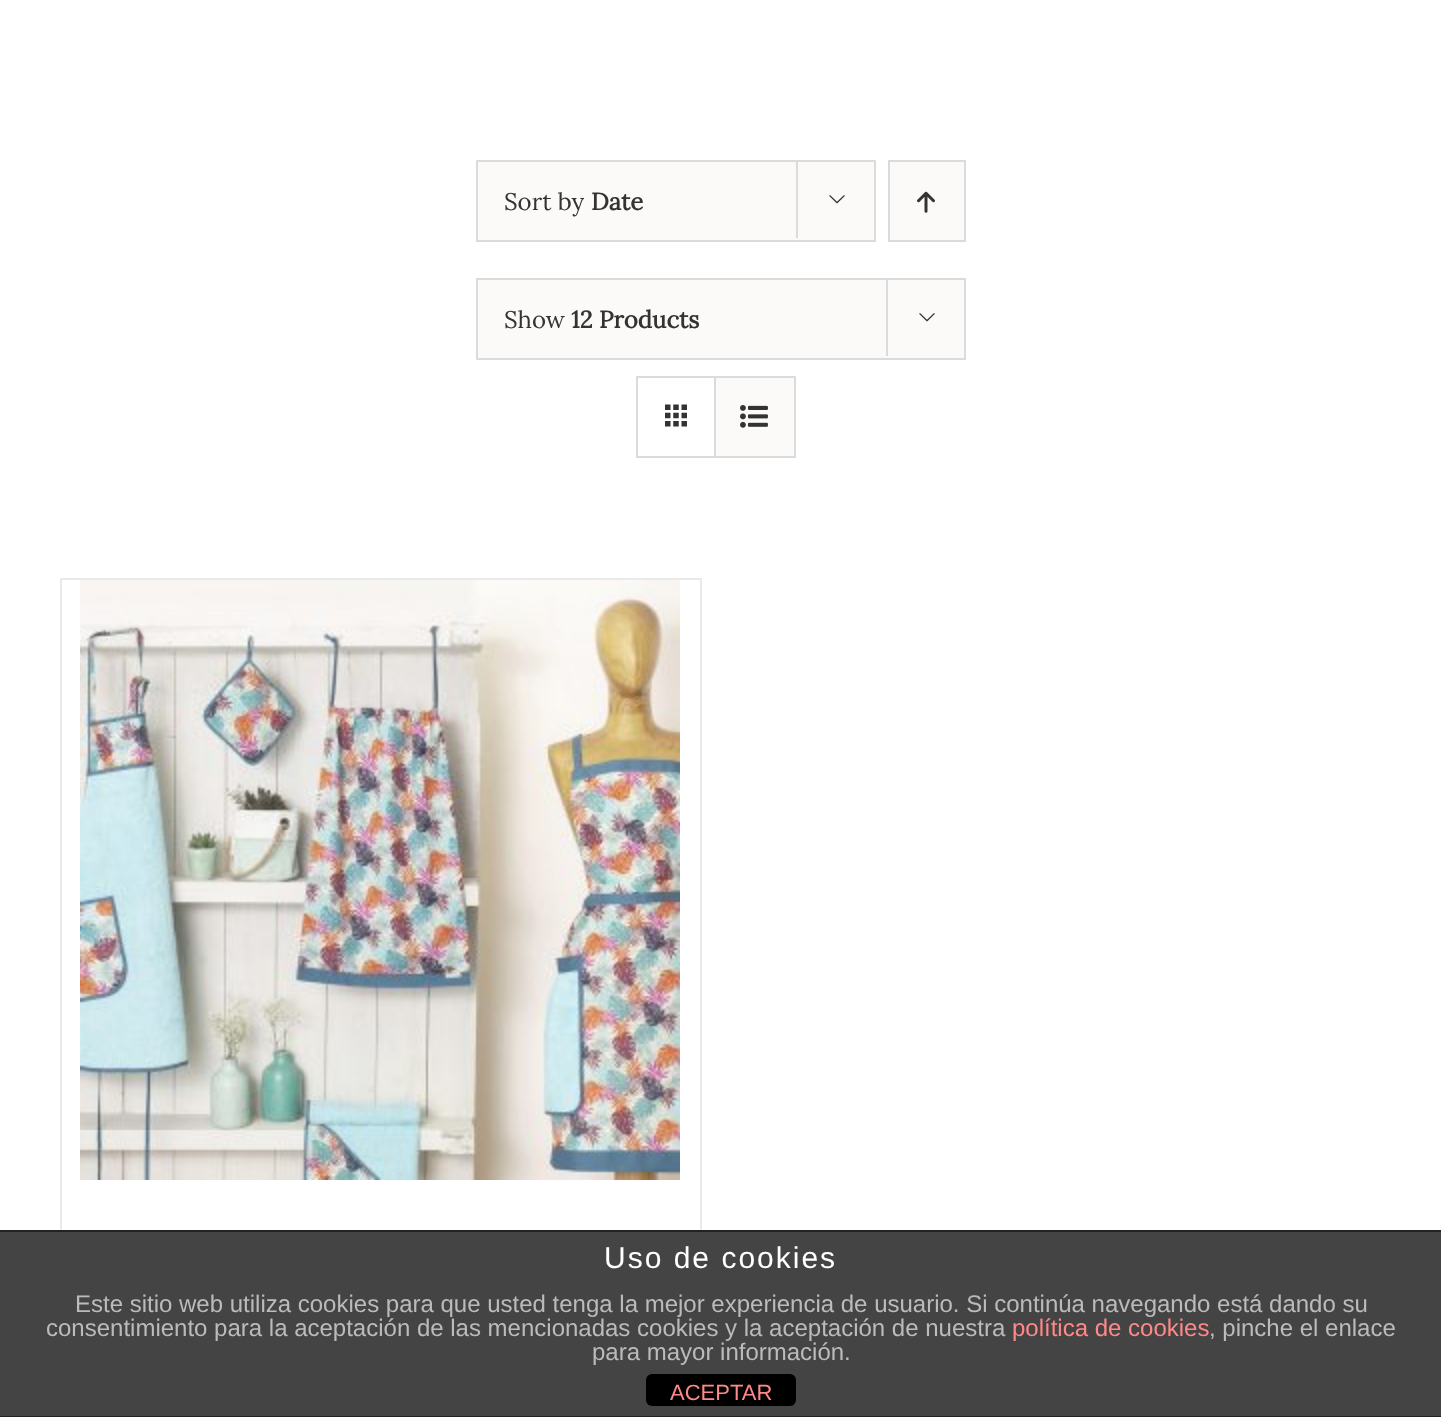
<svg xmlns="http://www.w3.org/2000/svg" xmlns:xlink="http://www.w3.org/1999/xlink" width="1441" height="1417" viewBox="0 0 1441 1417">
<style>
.cls-1{font:24px Lora;fill:#333333}
.cls-2{font:bold 24px Lora;fill:#333333}
.cls-3{font:30px Liberation Sans;letter-spacing:2px;fill:#ffffff}
.cls-4{font:24px Liberation Sans;fill:#bbbbbb}
.cls-5{font:24px Liberation Sans;fill:#ff8888}
.cls-6{font:22px Liberation Sans;fill:#ff8888}
</style>
<rect width="100%" height="100%" fill="#ffffff"/>
<rect fill="#fbfaf9" stroke="#dbdbdb" stroke-width="2" x="477" y="161" width="398" height="80"/>
<rect fill="#dbdbdb" x="796" y="160" width="2" height="78"/>
<image xlink:href="image0.png" x="829" y="195" width="16" height="9"/>
<rect fill="#fbfaf9" stroke="#dbdbdb" stroke-width="2" x="889" y="161" width="76" height="80"/>
<image xlink:href="image1.png" x="917" y="191" width="18" height="22"/>
<rect fill="#fbfaf9" stroke="#dbdbdb" stroke-width="2" x="477" y="279" width="488" height="80"/>
<rect fill="#dbdbdb" x="886" y="278" width="2" height="78"/>
<image xlink:href="image0.png" x="919" y="313" width="16" height="9"/>
<rect fill="none" stroke="#dbdbdb" stroke-width="2" x="637" y="377" width="158" height="80"/>
<rect fill="#dbdbdb" x="714" y="378" width="2" height="78"/>
<image xlink:href="image2.png" x="665" y="404" width="22" height="23"/>
<rect fill="#fbfaf9" x="716" y="378" width="78" height="78"/>
<image xlink:href="image3.png" x="740" y="405" width="28" height="23"/>
<rect fill="#ebeaea" x="60" y="578" width="642" height="2"/>
<rect fill="#ebeaea" x="700" y="578" width="2" height="652"/>
<rect fill="#ebeaea" x="60" y="578" width="2" height="652"/>
<image xlink:href="image4.png" x="80" y="580" width="600" height="600"/>
<rect fill="#444444" x="0" y="1232" width="1441" height="184"/>
<rect fill="#222222" x="0" y="1230" width="1441" height="2"/>
<rect fill="#222222" x="0" y="1416" width="1441" height="1"/>
<rect fill="#000000" x="646" y="1374" width="150" height="32" rx="6"/>
<text class="cls-1" x="504" y="210">Sort by</text>
<text class="cls-2" x="591" y="210">Date</text>
<text class="cls-1" x="504" y="328">Show</text>
<text class="cls-2" x="571" y="328">12 Products</text>
<text class="cls-3" x="604" y="1268">Uso de cookies</text>
<text class="cls-4" x="75" y="1312">Este sitio web utiliza cookies para que usted tenga la mejor experiencia de usuario. Si continúa navegando está dando su</text>
<text class="cls-4" x="46" y="1336">consentimiento para la aceptación de las mencionadas cookies y la aceptación de nuestra</text>
<text class="cls-5" x="1012" y="1336">política de cookies</text>
<text class="cls-4" x="1209" y="1336">, pinche el enlace</text>
<text class="cls-4" x="592" y="1360">para mayor información.</text>
<text class="cls-6" x="670" y="1400">ACEPTAR</text>
</svg>
